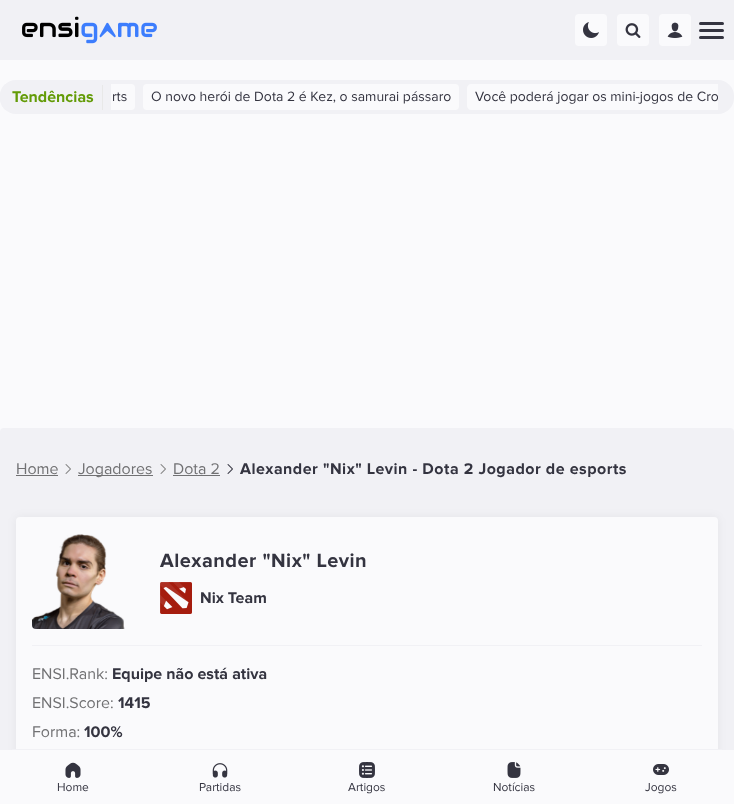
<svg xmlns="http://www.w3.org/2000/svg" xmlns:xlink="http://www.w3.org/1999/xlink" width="734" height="804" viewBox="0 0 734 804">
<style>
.cls-1{font:bold 16px Proxima Nova;fill:#639b07}
.cls-2{font:14px Proxima Nova;fill:#343440}
.cls-3{font:16px Proxima Nova;fill:#717173}
.cls-4{font:bold 16px Proxima Nova;letter-spacing:0.5px;fill:#343440}
.cls-5{font:bold 20px Proxima Nova;letter-spacing:0.5px;fill:#343440}
.cls-6{font:bold 16px Proxima Nova;fill:#343440}
.cls-7{font:12px Proxima Nova;fill:#343440}
</style>
<defs>
<clipPath id="clip1"><rect x="0" y="84" width="718" height="26"/></clipPath>
</defs>
<rect width="100%" height="100%" fill="#fafafc"/>
<rect fill="#f1f1f5" x="0" y="0" width="734" height="60"/>
<image xlink:href="image0.png" x="22" y="16" width="135" height="28"/>
<rect fill="#fafafc" x="575" y="14" width="32" height="32" rx="4"/>
<image xlink:href="image1.png" x="583" y="22" width="16" height="16"/>
<rect fill="#fafafc" x="617" y="14" width="32" height="32" rx="4"/>
<image xlink:href="image2.png" x="625" y="23" width="16" height="15"/>
<rect fill="#fafafc" x="659" y="14" width="32" height="32" rx="4"/>
<image xlink:href="image3.png" x="667" y="22" width="16" height="16"/>
<rect fill="#343440" x="699" y="22" width="25" height="3" rx="1.5"/>
<rect fill="#343440" x="699" y="29" width="25" height="3" rx="1.5"/>
<rect fill="#343440" x="699" y="36" width="25" height="3" rx="1.5"/>
<rect fill="#f1f1f5" x="0" y="80" width="734" height="34" rx="16"/>
<rect fill="#fafafc" x="73" y="84" width="62" height="26" rx="4"/>
<g clip-path="url(#clip1)">
<path fill="#f1f1f5" d="M16 80H111V114H16C7 114 0 107 0 98V96C0 87 7 80 16 80Z"/>
</g>
<rect fill="#e8e8e8" x="102" y="85" width="1" height="25"/>
<rect fill="#fafafc" x="143" y="84" width="316" height="26" rx="4"/>
<path fill="#fafafc" d="M471 84H718V110H471C469 110 467 108 467 106V88C467 86 469 84 471 84Z"/>
<rect fill="#f1f1f5" x="0" y="428" width="734" height="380" rx="4"/>
<rect fill="#717173" x="16" y="475" width="42" height="1"/>
<image xlink:href="image4.png" x="65" y="464" width="6" height="10"/>
<rect fill="#717173" x="78" y="475" width="75" height="1"/>
<image xlink:href="image4.png" x="160" y="464" width="6" height="10"/>
<rect fill="#717173" x="173" y="475" width="47" height="1"/>
<image xlink:href="image5.png" x="227" y="464" width="6" height="10"/>
<rect fill="#000000" fill-opacity="0.05" filter="blur(5px)" x="16" y="517" width="702" height="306" rx="4"/>
<rect fill="#fafafc" x="16" y="517" width="702" height="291" rx="4"/>
<image xlink:href="image6.png" x="32" y="534" width="93" height="95"/>
<image xlink:href="image7.png" x="160" y="582" width="32" height="32"/>
<rect fill="#f1f1f5" x="32" y="645" width="670" height="1"/>
<rect fill="#fafafc" x="0" y="750" width="734" height="54"/>
<rect fill="#f1f1f5" x="12" y="749" width="710" height="1"/>
<image xlink:href="image8.png" x="65" y="762" width="16" height="16"/>
<image xlink:href="image9.png" x="212" y="763" width="16" height="15"/>
<image xlink:href="image10.png" x="359" y="762" width="16" height="16"/>
<image xlink:href="image11.png" x="507" y="762" width="14" height="16"/>
<image xlink:href="image12.png" x="653" y="764" width="16" height="11"/>
<text class="cls-1" x="12" y="102">Tendências</text>
<text class="cls-2" x="112" y="101">rts</text>
<text class="cls-2" x="151" y="101">O novo herói de Dota 2 é Kez, o samurai pássaro</text>
<g clip-path="url(#clip1)">
<text class="cls-2" x="475" y="101">Você poderá jogar os mini-jogos de Cro</text>
</g>
<text class="cls-3" x="16" y="474">Home</text>
<text class="cls-3" x="78" y="474">Jogadores</text>
<text class="cls-3" x="173" y="474">Dota 2</text>
<text class="cls-4" x="240" y="474">Alexander "Nix" Levin - Dota 2 Jogador de esports</text>
<text class="cls-5" x="160" y="567">Alexander "Nix" Levin</text>
<text class="cls-6" x="200" y="603">Nix Team</text>
<text class="cls-3" x="32" y="679">ENSI.Rank:</text>
<text class="cls-6" x="112" y="679">Equipe não está ativa</text>
<text class="cls-3" x="32" y="708">ENSI.Score:</text>
<text class="cls-6" x="118" y="708">1415</text>
<text class="cls-3" x="32" y="737">Forma:</text>
<text class="cls-6" x="84" y="737">100%</text>
<text class="cls-7" x="57" y="791">Home</text>
<text class="cls-7" x="199" y="791">Partidas</text>
<text class="cls-7" x="348" y="791">Artigos</text>
<text class="cls-7" x="493" y="791">Notícias</text>
<text class="cls-7" x="645" y="791">Jogos</text>
</svg>
